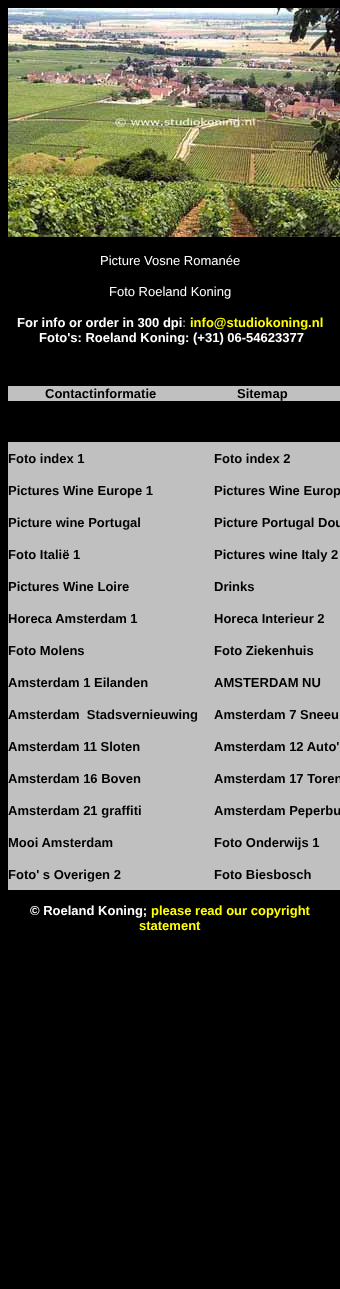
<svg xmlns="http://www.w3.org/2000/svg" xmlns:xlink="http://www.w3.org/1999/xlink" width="340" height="1289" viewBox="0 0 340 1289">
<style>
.cls-1{font:13px Liberation Sans;fill:#ffffff}
.cls-2{font:bold 13px Liberation Sans;fill:#ffffff}
.cls-3{font:bold 13px Liberation Sans;fill:#808080}
.cls-4{font:bold 13px Liberation Sans;fill:#ffff00}
.cls-5{font:bold 13px Liberation Sans;fill:#000000}
</style>
<rect width="100%" height="100%" fill="#000000"/>
<image xlink:href="image0.png" x="8" y="8" width="332" height="229"/>
<rect fill="#c0c0c0" x="8" y="386" width="332" height="15"/>
<rect fill="#c0c0c0" x="8" y="442" width="332" height="32"/>
<rect fill="#c0c0c0" x="8" y="474" width="332" height="32"/>
<rect fill="#c0c0c0" x="8" y="506" width="332" height="32"/>
<rect fill="#c0c0c0" x="8" y="538" width="332" height="32"/>
<rect fill="#c0c0c0" x="8" y="570" width="332" height="32"/>
<rect fill="#c0c0c0" x="8" y="602" width="332" height="32"/>
<rect fill="#c0c0c0" x="8" y="634" width="332" height="32"/>
<rect fill="#c0c0c0" x="8" y="666" width="332" height="32"/>
<rect fill="#c0c0c0" x="8" y="698" width="332" height="32"/>
<rect fill="#c0c0c0" x="8" y="730" width="332" height="32"/>
<rect fill="#c0c0c0" x="8" y="762" width="332" height="32"/>
<rect fill="#c0c0c0" x="8" y="794" width="332" height="32"/>
<rect fill="#c0c0c0" x="8" y="826" width="332" height="32"/>
<rect fill="#c0c0c0" x="8" y="858" width="332" height="32"/>
<text class="cls-1" x="100" y="265">Picture Vosne Romanée</text>
<text class="cls-1" x="109" y="296">Foto Roeland Koning</text>
<text class="cls-2" x="17" y="327">For info or order in 300 dpi</text>
<text class="cls-3" x="182" y="327">:</text>
<text class="cls-4" x="190" y="327">info@studiokoning.nl</text>
<text class="cls-2" x="39" y="342">Foto's: Roeland Koning: (+31) 06-54623377</text>
<text class="cls-5" x="45" y="398">Contactinformatie</text>
<text class="cls-5" x="237" y="398">Sitemap</text>
<text class="cls-5" x="8" y="463">Foto index 1</text>
<text class="cls-5" x="214" y="463">Foto index 2</text>
<text class="cls-5" x="8" y="495">Pictures Wine Europe 1</text>
<text class="cls-5" x="214" y="495">Pictures Wine Europ</text>
<text class="cls-5" x="8" y="527">Picture wine Portugal</text>
<text class="cls-5" x="214" y="527">Picture Portugal Dou</text>
<text class="cls-5" x="8" y="559">Foto Italië 1</text>
<text class="cls-5" x="214" y="559">Pictures wine Italy 2</text>
<text class="cls-5" x="8" y="591">Pictures Wine Loire</text>
<text class="cls-5" x="214" y="591">Drinks</text>
<text class="cls-5" x="8" y="623">Horeca Amsterdam 1</text>
<text class="cls-5" x="214" y="623">Horeca Interieur 2</text>
<text class="cls-5" x="8" y="655">Foto Molens</text>
<text class="cls-5" x="214" y="655">Foto Ziekenhuis</text>
<text class="cls-5" x="8" y="687">Amsterdam 1 Eilanden</text>
<text class="cls-5" x="214" y="687">AMSTERDAM NU</text>
<text class="cls-5" xml:space="preserve" x="8" y="719">Amsterdam  Stadsvernieuwing</text>
<text class="cls-5" x="214" y="719">Amsterdam 7 Sneeu</text>
<text class="cls-5" x="8" y="751">Amsterdam 11 Sloten</text>
<text class="cls-5" x="214" y="751">Amsterdam 12 Auto'</text>
<text class="cls-5" x="8" y="783">Amsterdam 16 Boven</text>
<text class="cls-5" x="214" y="783">Amsterdam 17 Toren</text>
<text class="cls-5" x="8" y="815">Amsterdam 21 graffiti</text>
<text class="cls-5" x="214" y="815">Amsterdam Peperbu</text>
<text class="cls-5" x="8" y="847">Mooi Amsterdam</text>
<text class="cls-5" x="214" y="847">Foto Onderwijs 1</text>
<text class="cls-5" x="8" y="879">Foto' s Overigen 2</text>
<text class="cls-5" x="214" y="879">Foto Biesbosch</text>
<text class="cls-2" x="30" y="915">© Roeland Koning;</text>
<text class="cls-4" x="151" y="915">please read our copyright</text>
<text class="cls-4" x="139" y="930">statement</text>
</svg>
